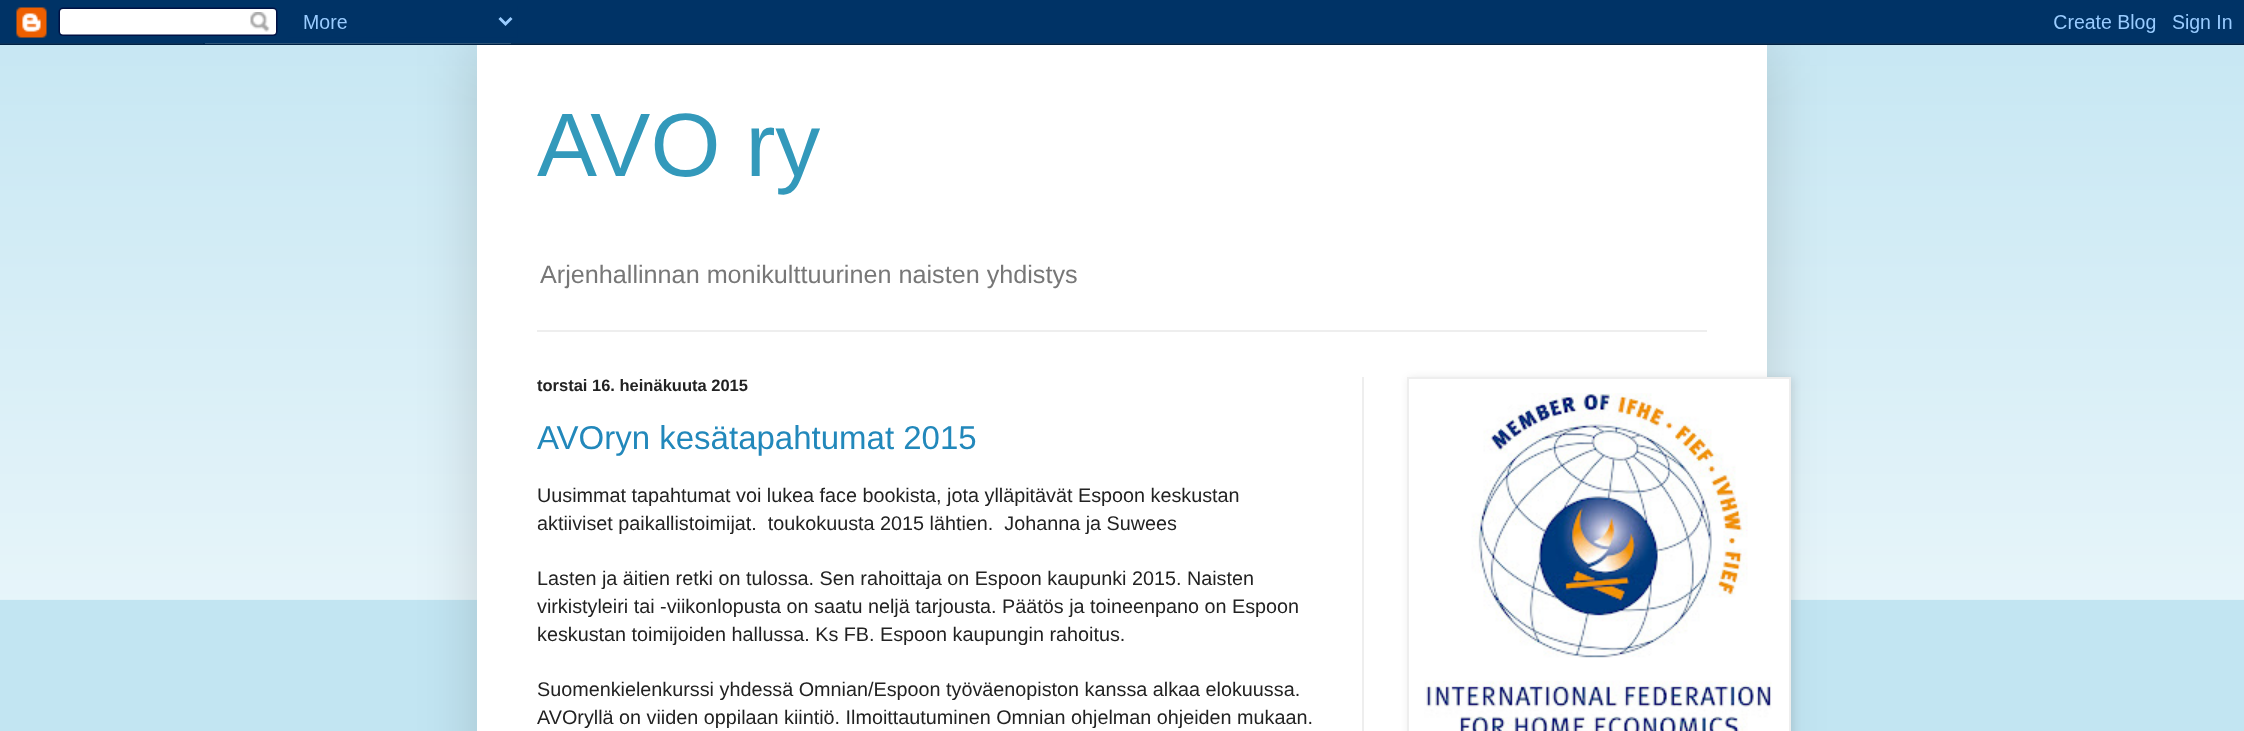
<svg xmlns="http://www.w3.org/2000/svg" xmlns:xlink="http://www.w3.org/1999/xlink" width="2244" height="731" viewBox="0 0 2244 731">
<style>
.cls-1{font:90px Liberation Sans;fill:#3399bb}
.cls-2{font:25.2px Liberation Sans;fill:#777777}
.cls-3{font:bold 16.5px Liberation Sans;fill:#222222}
.cls-4{font:33px Liberation Sans;fill:#2288bb}
.cls-5{font:19.8px Liberation Sans;fill:#222222}
</style>
<rect width="100%" height="100%" fill="#c2e5f2"/>
<image xlink:href="image1.png" x="0" y="43" width="2244" height="557"/>
<rect fill="#000000" fill-opacity="0.15" filter="blur(30px)" x="477" y="45" width="1290" height="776"/>
<image xlink:href="image0.png" x="0" y="0" width="2244" height="45"/>
<rect fill="#ffffff" x="477" y="45" width="1290" height="686"/>
<rect fill="#eeeeee" x="537" y="330" width="1170" height="2"/>
<rect fill="#000000" fill-opacity="0.1" filter="blur(4px)" x="1409" y="378" width="384" height="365"/>
<rect fill="#ffffff" stroke="#eeeeee" stroke-width="2" x="1408" y="378" width="382" height="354"/>
<image xlink:href="image2.png" x="1424" y="393" width="348" height="338"/>
<rect fill="#eeeeee" x="1362" y="377" width="2" height="354"/>
<text class="cls-1" x="537" y="176">AVO ry</text>
<text class="cls-2" x="540" y="283">Arjenhallinnan monikulttuurinen naisten yhdistys</text>
<text class="cls-3" x="537" y="391">torstai 16. heinäkuuta 2015</text>
<text class="cls-4" x="537" y="449">AVOryn kesätapahtumat 2015</text>
<text class="cls-5" xml:space="preserve"><tspan x="537" y="502">Uusimmat tapahtumat voi lukea face bookista, jota ylläpitävät Espoon keskustan</tspan><tspan x="537" y="530">aktiiviset paikallistoimijat.  toukokuusta 2015 lähtien.  Johanna ja Suwees</tspan></text>
<text class="cls-5"><tspan x="537" y="585">Lasten ja äitien retki on tulossa. Sen rahoittaja on Espoon kaupunki 2015. Naisten</tspan><tspan x="537" y="613">virkistyleiri tai -viikonlopusta on saatu neljä tarjousta. Päätös ja toineenpano on Espoon</tspan><tspan x="537" y="641">keskustan toimijoiden hallussa. Ks FB. Espoon kaupungin rahoitus.</tspan></text>
<text class="cls-5"><tspan x="537" y="696">Suomenkielenkurssi yhdessä Omnian/Espoon työväenopiston kanssa alkaa elokuussa.</tspan><tspan x="537" y="724">AVOryllä on viiden oppilaan kiintiö. Ilmoittautuminen Omnian ohjelman ohjeiden mukaan.</tspan></text>
</svg>
